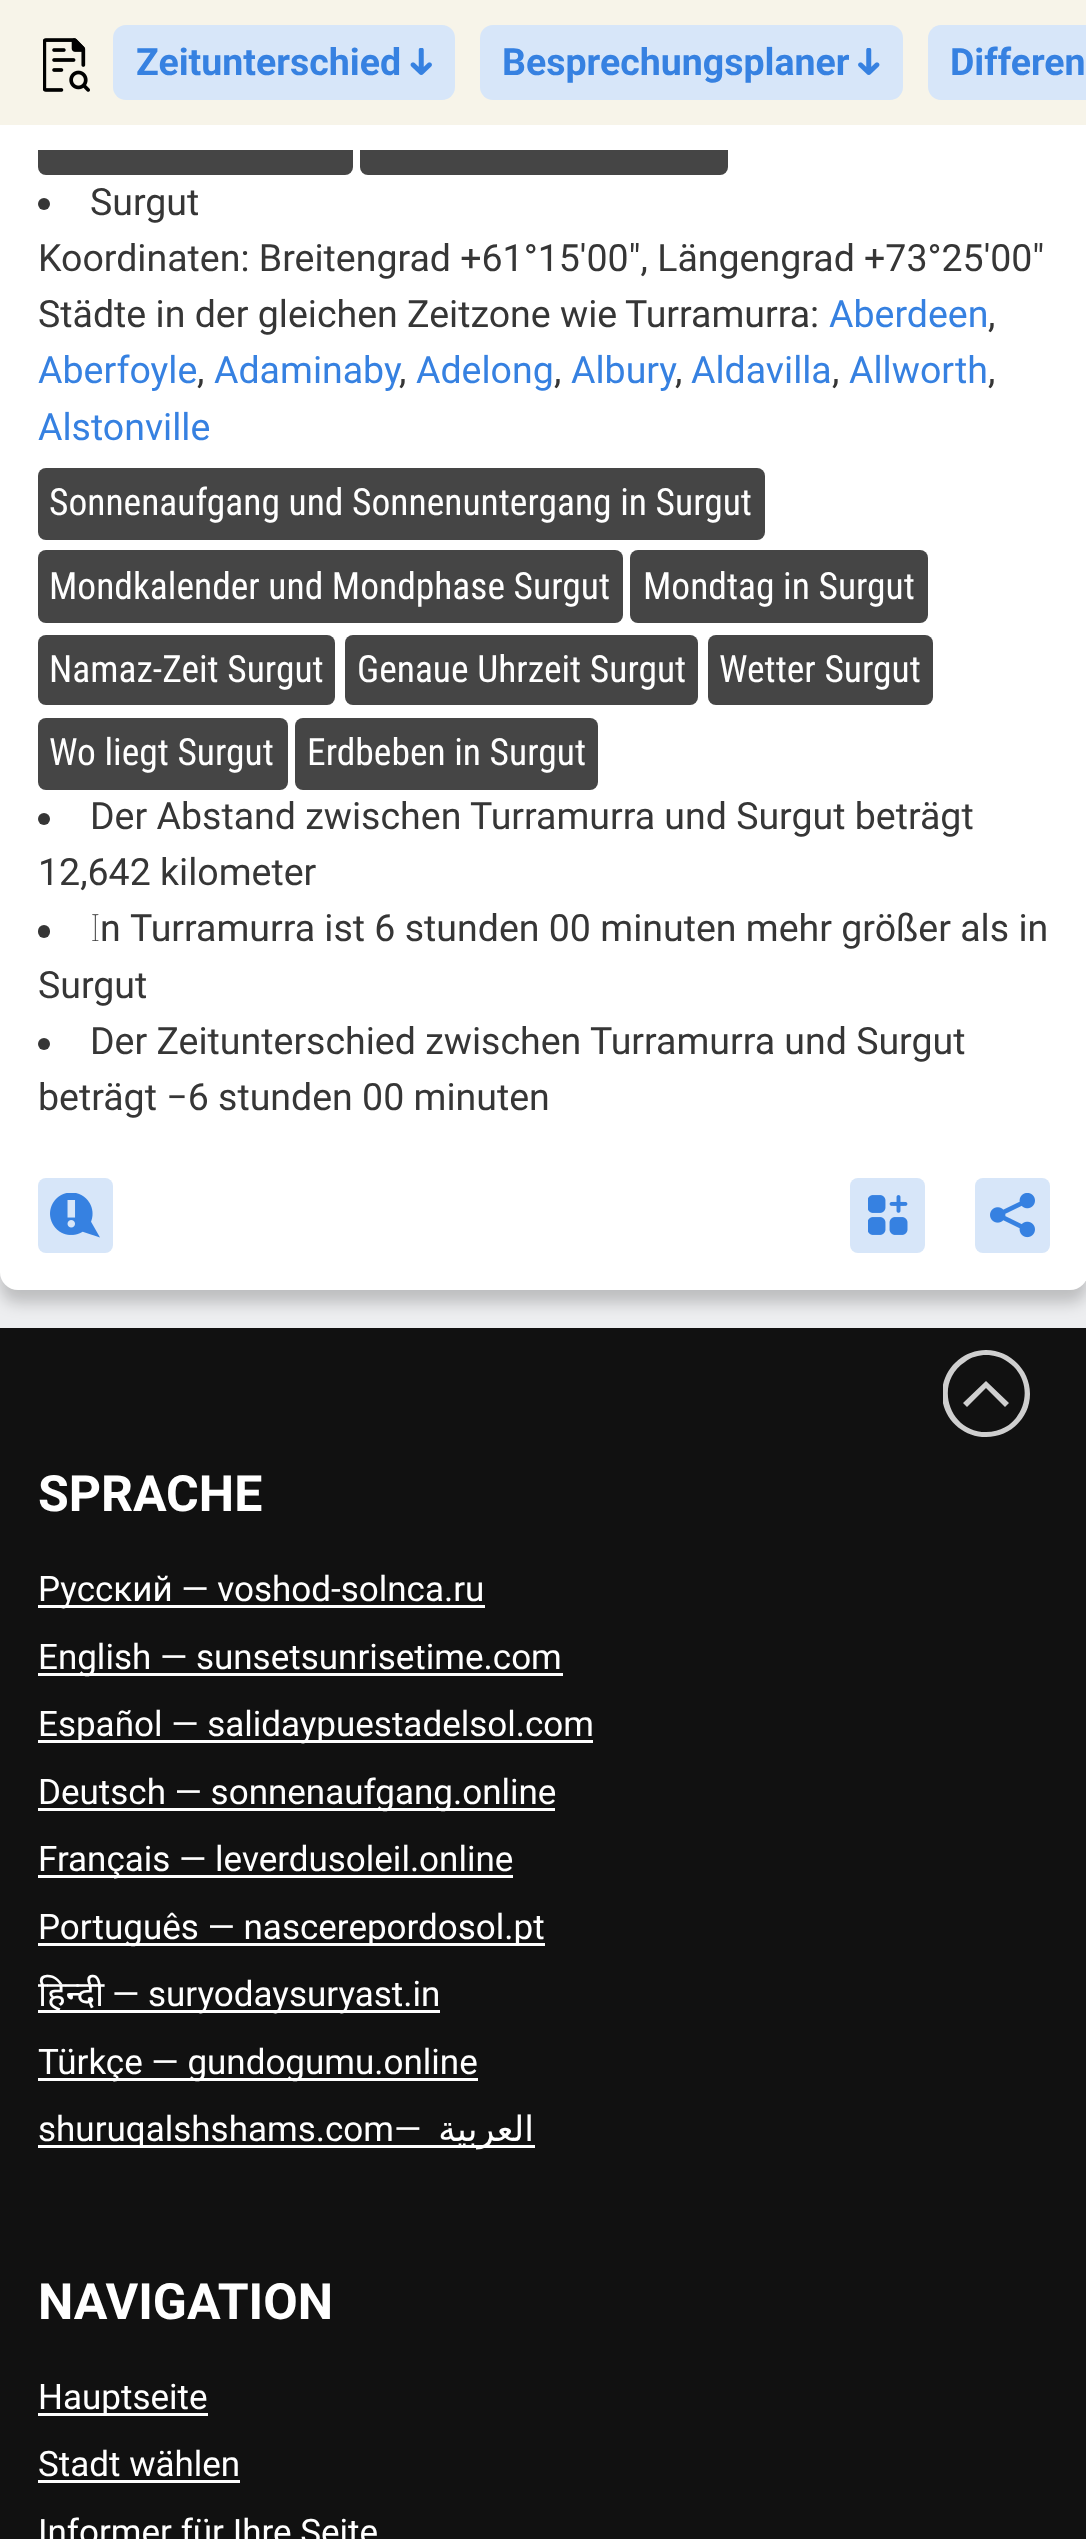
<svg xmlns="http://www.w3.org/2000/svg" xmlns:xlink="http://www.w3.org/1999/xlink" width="1086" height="2539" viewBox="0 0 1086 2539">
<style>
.cls-1{font:bold 37.5px 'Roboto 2';fill:#3681e1}
.cls-2{font:37.5px Roboto;fill:#363636}
.cls-3{font:37.5px Roboto;fill:#3681e1}
.cls-4{font:37.5px Roboto Condensed;fill:#ffffff}
.cls-5{font:100 37.5px Noto Sans;fill:#363636}
.cls-6{font:bold 50px Roboto;fill:#ffffff}
.cls-7{font:35px Roboto;fill:#ffffff}
.cls-8{font:35px Noto Sans;fill:#ffffff}
.cls-9{font:35px DejaVu Sans;direction:rtl;fill:#ffffff}
</style>
<defs>
<clipPath id="clip1"><rect x="943" y="1350" width="87" height="88"/></clipPath>
</defs>
<rect width="100%" height="100%" fill="#edeef0"/>
<rect fill="#000000" fill-opacity="0.2" filter="blur(7.5px)" x="0" y="-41" width="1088" height="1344" rx="18"/>
<rect fill="#ffffff" x="0" y="-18" width="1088" height="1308" rx="18"/>
<rect fill="#454545" x="38" y="103" width="315" height="72" rx="8"/>
<rect fill="#454545" x="360" y="103" width="368" height="72" rx="8"/>
<rect fill="#ffffff" x="38" y="125" width="690" height="25"/>
<rect fill="#f7f4e9" x="0" y="0" width="1086" height="125"/>
<image xlink:href="image0.png" x="43" y="38" width="47" height="54"/>
<rect fill="#d7e6f9" x="113" y="25" width="342" height="75" rx="13"/>
<image xlink:href="image1.png" x="410" y="48" width="22" height="27"/>
<rect fill="#d7e6f9" x="480" y="25" width="423" height="75" rx="13"/>
<image xlink:href="image2.png" x="858" y="48" width="22" height="27"/>
<path fill="#d7e6f9" d="M941 25H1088V100H941C934 100 928 94 928 87V38C928 31 934 25 941 25Z"/>
<circle fill="#363636" cx="44" cy="204" r="6"/>
<rect fill="#454545" x="38" y="468" width="727" height="72" rx="8"/>
<rect fill="#454545" x="38" y="550" width="585" height="73" rx="8"/>
<rect fill="#454545" x="630" y="550" width="298" height="73" rx="8"/>
<rect fill="#454545" x="38" y="635" width="297" height="70" rx="8"/>
<rect fill="#454545" x="345" y="635" width="353" height="70" rx="8"/>
<rect fill="#454545" x="708" y="635" width="225" height="70" rx="8"/>
<rect fill="#454545" x="38" y="718" width="250" height="72" rx="8"/>
<rect fill="#454545" x="295" y="718" width="303" height="72" rx="8"/>
<circle fill="#363636" cx="44" cy="819" r="6"/>
<rect fill="#363636" x="38" y="925" width="12" height="13" rx="6"/>
<circle fill="#363636" cx="44" cy="1044" r="6"/>
<rect fill="#d7e6f9" x="38" y="1178" width="75" height="75" rx="8"/>
<image xlink:href="image3.png" x="50" y="1193" width="50" height="45"/>
<rect fill="#d7e6f9" x="850" y="1178" width="75" height="75" rx="8"/>
<image xlink:href="image4.png" x="868" y="1195" width="40" height="40"/>
<rect fill="#d7e6f9" x="975" y="1178" width="75" height="75" rx="8"/>
<image xlink:href="image5.png" x="990" y="1193" width="45" height="45"/>
<rect fill="#111111" x="0" y="1328" width="1086" height="1211"/>
<g clip-path="url(#clip1)">
<path fill="#cfcfcf" d="M986 1350C962 1350 942 1370 942 1394C942 1418 962 1437 986 1437C1010 1437 1030 1418 1030 1394C1030 1370 1010 1350 986 1350ZM986 1355C994 1355 1001 1357 1008 1362C1039 1383 1024 1432 986 1432C949 1432 933 1383 965 1362C971 1357 979 1355 986 1355Z"/>
</g>
<path fill="#cfcfcf" d="M963 1403L967 1407L986 1388L1005 1407L1009 1403L986 1381Z"/>
<rect fill="#ffffff" x="38" y="1605" width="447" height="3"/>
<rect fill="#ffffff" x="38" y="1673" width="525" height="3"/>
<rect fill="#ffffff" x="38" y="1740" width="555" height="3"/>
<rect fill="#ffffff" x="38" y="1808" width="517" height="3"/>
<rect fill="#ffffff" x="38" y="1875" width="475" height="3"/>
<rect fill="#ffffff" x="38" y="1943" width="507" height="3"/>
<rect fill="#ffffff" x="38" y="2010" width="402" height="3"/>
<rect fill="#ffffff" x="38" y="2078" width="440" height="3"/>
<rect fill="#ffffff" x="38" y="2145" width="355" height="3"/>
<rect fill="#ffffff" x="393" y="2145" width="142" height="3"/>
<rect fill="#ffffff" x="38" y="2413" width="170" height="3"/>
<rect fill="#ffffff" x="38" y="2480" width="202" height="3"/>
<text class="cls-1" x="136" y="75">Zeitunterschied</text>
<text class="cls-1" x="502" y="75">Besprechungsplaner</text>
<text class="cls-1" x="950" y="75">Differen</text>
<text class="cls-2" x="90" y="215">Surgut</text>
<text class="cls-2"><tspan x="38" y="271">Koordinaten: Breitengrad +61°15′00″, Längengrad +73°25′00″</tspan><tspan x="38" y="327">Städte in der gleichen Zeitzone wie</tspan></text>
<text class="cls-2" x="625" y="327">Turramurra:</text>
<text class="cls-3" x="829" y="327">Aberdeen</text>
<text class="cls-2" x="988" y="327">,</text>
<text class="cls-3" x="38" y="383">Aberfoyle</text>
<text class="cls-2" x="197" y="383">,</text>
<text class="cls-3" x="214" y="383">Adaminaby</text>
<text class="cls-2" x="399" y="383">,</text>
<text class="cls-3" x="416" y="383">Adelong</text>
<text class="cls-2" x="554" y="383">,</text>
<text class="cls-3" x="571" y="383">Albury</text>
<text class="cls-2" x="675" y="383">,</text>
<text class="cls-3" x="691" y="383">Aldavilla</text>
<text class="cls-2" x="832" y="383">,</text>
<text class="cls-3" x="849" y="383">Allworth</text>
<text class="cls-2" x="988" y="383">,</text>
<text class="cls-3" x="38" y="440">Alstonville</text>
<text class="cls-4" x="49" y="515">Sonnenaufgang und Sonnenuntergang in Surgut</text>
<text class="cls-4" x="49" y="599">Mondkalender und Mondphase Surgut</text>
<text class="cls-4" x="643" y="599">Mondtag in Surgut</text>
<text class="cls-4" x="49" y="682">Namaz-Zeit Surgut</text>
<text class="cls-4" x="357" y="682">Genaue Uhrzeit Surgut</text>
<text class="cls-4" x="719" y="682">Wetter Surgut</text>
<text class="cls-4" x="49" y="765">Wo liegt Surgut</text>
<text class="cls-4" x="307" y="765">Erdbeben in Surgut</text>
<text class="cls-2" x="90" y="829">Der Abstand zwischen</text>
<text class="cls-2" x="470" y="829">Turramurra und Surgut beträgt</text>
<text class="cls-2" x="38" y="885">12,642 kilometer</text>
<text class="cls-5" x="90" y="941">I</text>
<text class="cls-2" x="100" y="941">n</text>
<text class="cls-2" x="130" y="941">Turramurra ist 6 stunden 00 minuten mehr größer als in</text>
<text class="cls-2" x="38" y="998">Surgut</text>
<text class="cls-2" x="90" y="1054">Der Zeitunterschied zwischen</text>
<text class="cls-2" x="590" y="1054">Turramurra und Surgut</text>
<text class="cls-2" x="38" y="1110">beträgt −6 stunden 00 minuten</text>
<text class="cls-6" x="38" y="1511">SPRACHE</text>
<text class="cls-7"><tspan x="38" y="1601">Русский — voshod-solnca.ru</tspan><tspan x="38" y="1669">English — sunsetsunrisetime.com</tspan><tspan x="38" y="1736">Español — salidaypuestadelsol.com</tspan><tspan x="38" y="1804">Deutsch — sonnenaufgang.online</tspan><tspan x="38" y="1871">Français — leverdusoleil.online</tspan><tspan x="38" y="1939">Português — nascerepordosol.pt</tspan></text>
<text class="cls-8" x="38" y="2006">हिन्दी</text>
<text class="cls-7" x="112" y="2006">— suryodaysuryast.in</text>
<text class="cls-7"><tspan x="38" y="2074">Türkçe — gundogumu.online</tspan><tspan x="38" y="2141">shuruqalshshams.com—</tspan></text>
<text class="cls-9" x="534" y="2141">العربية</text>
<text class="cls-6" x="38" y="2319">NAVIGATION</text>
<text class="cls-7"><tspan x="38" y="2409">Hauptseite</tspan><tspan x="38" y="2476">Stadt wählen</tspan><tspan x="38" y="2544">Informer für Ihre Seite</tspan></text>
</svg>
